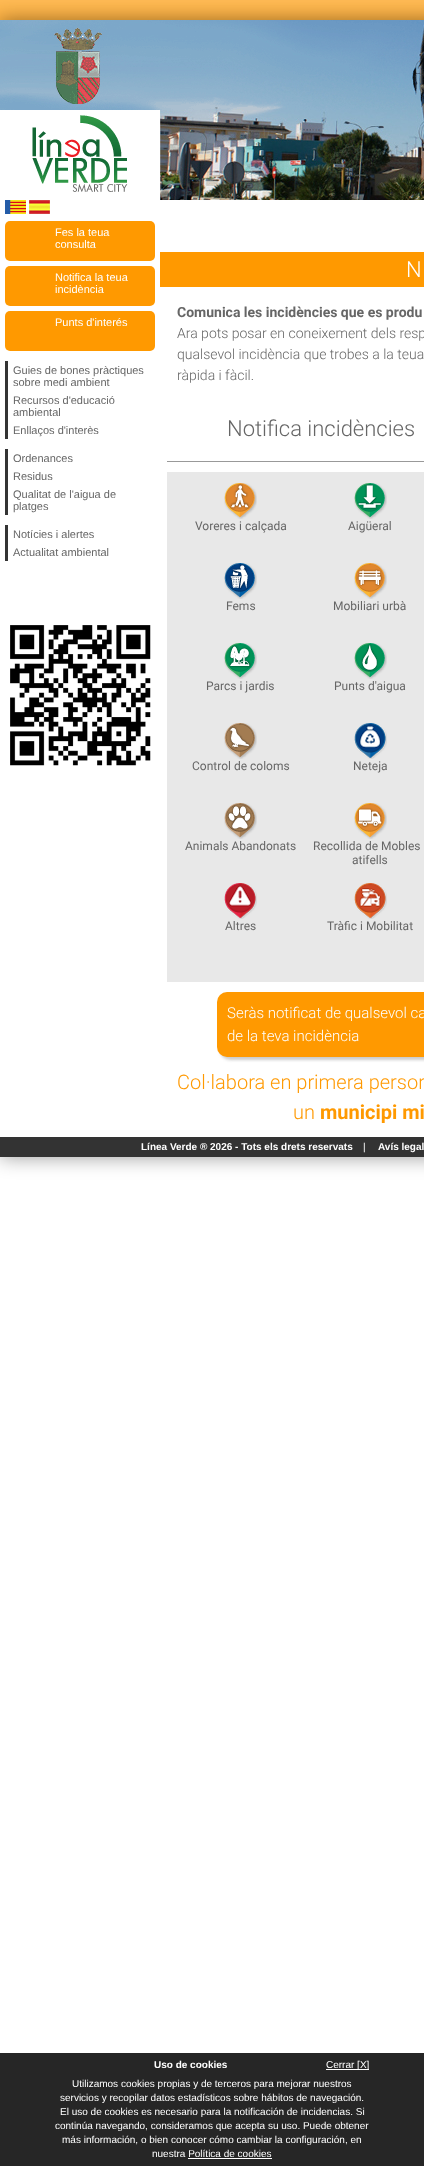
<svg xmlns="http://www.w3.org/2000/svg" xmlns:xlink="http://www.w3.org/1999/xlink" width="424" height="2166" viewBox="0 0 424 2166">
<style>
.cls-1{font:11px Liberation Sans;fill:#ffffff}
.cls-2{font:11px Liberation Sans;fill:#666666}
.cls-3{font:300 22px Roboto;fill:#ffffff}
.cls-4{font:bold 14px Roboto;fill:#666666}
.cls-5{font:300 14px Roboto;fill:#666666}
.cls-6{font:300 22px Roboto;fill:#666666}
.cls-7{font:12px Roboto;fill:#666666}
.cls-8{font:300 15px Roboto;fill:#ffffff}
.cls-9{font:300 20px Roboto;fill:#ff9900}
.cls-10{font:bold 20px Roboto;fill:#ff9900}
.cls-11{font:bold 10px Liberation Sans;fill:#ffffff}
.cls-12{font:10px Liberation Sans;fill:#ffffff}
</style>
<rect width="100%" height="100%" fill="#ffffff"/>
<image xlink:href="image0.png" x="0" y="0" width="424" height="20"/>
<rect fill="#000000" fill-opacity="0.4" filter="blur(10px)" x="0" y="20" width="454" height="1137"/>
<rect fill="#ffffff" x="0" y="110" width="424" height="1027"/>
<image xlink:href="image1.png" x="0" y="20" width="424" height="90"/>
<image xlink:href="image2.png" x="32" y="115" width="96" height="77"/>
<image xlink:href="image3.png" x="160" y="110" width="264" height="90"/>
<image xlink:href="image4.png" x="5" y="200" width="21" height="14"/>
<image xlink:href="image5.png" x="29" y="200" width="21" height="14"/>
<rect fill="#ff9900" x="5" y="221" width="150" height="40" rx="5"/>
<rect fill="#ff9900" x="5" y="266" width="150" height="40" rx="5"/>
<rect fill="#ff9900" x="5" y="311" width="150" height="40" rx="5"/>
<rect fill="#343434" x="5" y="361" width="3" height="78"/>
<rect fill="#343434" x="5" y="449" width="3" height="66"/>
<rect fill="#343434" x="5" y="525" width="3" height="36"/>
<image xlink:href="image6.png" x="10" y="625" width="141" height="141"/>
<rect fill="#ff9900" x="160" y="252" width="264" height="35"/>
<rect fill="#999999" x="167" y="461" width="257" height="1"/>
<rect fill="#e8e8e8" x="167" y="472" width="257" height="510"/>
<image xlink:href="image7.png" x="224" y="483" width="33" height="36"/>
<image xlink:href="image8.png" x="354" y="483" width="33" height="36"/>
<image xlink:href="image9.png" x="224" y="563" width="33" height="36"/>
<image xlink:href="image10.png" x="354" y="563" width="33" height="36"/>
<image xlink:href="image11.png" x="224" y="643" width="33" height="36"/>
<image xlink:href="image12.png" x="354" y="643" width="33" height="36"/>
<image xlink:href="image13.png" x="224" y="723" width="33" height="36"/>
<image xlink:href="image14.png" x="354" y="723" width="33" height="36"/>
<image xlink:href="image15.png" x="224" y="803" width="33" height="36"/>
<image xlink:href="image16.png" x="354" y="803" width="33" height="36"/>
<image xlink:href="image17.png" x="224" y="883" width="33" height="36"/>
<image xlink:href="image18.png" x="354" y="883" width="33" height="36"/>
<rect fill="#cccccc" filter="blur(1.5px)" x="220" y="995" width="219" height="65" rx="10"/>
<rect fill="#ff9900" x="217" y="992" width="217" height="65" rx="10"/>
<rect fill="#333333" x="0" y="1137" width="424" height="20"/>
<rect fill="#262626" x="0" y="2053" width="424" height="113"/>
<rect fill="#ffffff" x="326" y="2069" width="43" height="1"/>
<rect fill="#ffffff" x="188" y="2158" width="84" height="1"/>
<text class="cls-1"><tspan x="55" y="236">Fes la teua</tspan><tspan x="55" y="248">consulta</tspan></text>
<text class="cls-1"><tspan x="55" y="281">Notifica la teua</tspan><tspan x="55" y="293">incidència</tspan></text>
<text class="cls-1" x="55" y="326">Punts d'interés</text>
<text class="cls-2"><tspan x="13" y="374">Guies de bones pràctiques</tspan><tspan x="13" y="386">sobre medi ambient</tspan><tspan x="13" y="404">Recursos d'educació</tspan><tspan x="13" y="416">ambiental</tspan><tspan x="13" y="434">Enllaços d'interès</tspan></text>
<text class="cls-2"><tspan x="13" y="462">Ordenances</tspan><tspan x="13" y="480">Residus</tspan><tspan x="13" y="498">Qualitat de l'aigua de</tspan><tspan x="13" y="510">platges</tspan></text>
<text class="cls-2"><tspan x="13" y="538">Notícies i alertes</tspan><tspan x="13" y="556">Actualitat ambiental</tspan></text>
<text class="cls-3" x="406" y="277">N</text>
<text class="cls-4" x="177" y="317">Comunica les incidències que es produ</text>
<text class="cls-5"><tspan x="177" y="338">Ara pots posar en coneixement dels resp</tspan><tspan x="177" y="359">qualsevol incidència que trobes a la teua</tspan><tspan x="177" y="380">ràpida i fàcil.</tspan></text>
<text class="cls-6" x="227" y="436">Notifica incidències</text>
<text class="cls-7" x="195" y="530">Voreres i calçada</text>
<text class="cls-7" x="348" y="530">Aigüeral</text>
<text class="cls-7" x="226" y="610">Fems</text>
<text class="cls-7" x="333" y="610">Mobiliari urbà</text>
<text class="cls-7" x="206" y="690">Parcs i jardis</text>
<text class="cls-7" x="334" y="690">Punts d'aigua</text>
<text class="cls-7" x="192" y="770">Control de coloms</text>
<text class="cls-7" x="353" y="770">Neteja</text>
<text class="cls-7" x="185" y="850">Animals Abandonats</text>
<text class="cls-7" x="313" y="850">Recollida de Mobles</text>
<text class="cls-7" x="352" y="864">atifells</text>
<text class="cls-7" x="225" y="930">Altres</text>
<text class="cls-7" x="327" y="930">Tràfic i Mobilitat</text>
<text class="cls-8"><tspan x="227" y="1018">Seràs notificat de qualsevol ca</tspan><tspan x="227" y="1041">de la teva incidència</tspan></text>
<text class="cls-9" x="177" y="1089">Col·labora en primera person</text>
<text class="cls-9" x="293" y="1119">un</text>
<text class="cls-10" x="320" y="1119">municipi mi</text>
<text class="cls-11" x="141" y="1150">Línea Verde ® 2026 - Tots els drets reservats</text>
<text class="cls-12" x="363" y="1150">|</text>
<text class="cls-11" x="378" y="1150">Avís legal</text>
<text class="cls-11" x="154" y="2068">Uso de cookies</text>
<text class="cls-12" x="326" y="2068">Cerrar [X]</text>
<text class="cls-12" x="72" y="2087">Utilizamos cookies propias y de terceros para mejorar nuestros</text>
<text class="cls-12"><tspan x="60" y="2101">servicios y recopilar datos estadísticos sobre hábitos de navegación.</tspan><tspan x="60" y="2115">El uso de cookies es necesario para la notificación de incidencias. Si</tspan></text>
<text class="cls-12" x="55" y="2129">continúa navegando, consideramos que acepta su uso. Puede obtener</text>
<text class="cls-12" x="62" y="2143">más información, o bien conocer cómo cambiar la configuración, en</text>
<text class="cls-12" x="152" y="2157">nuestra Política de cookies</text>
</svg>
